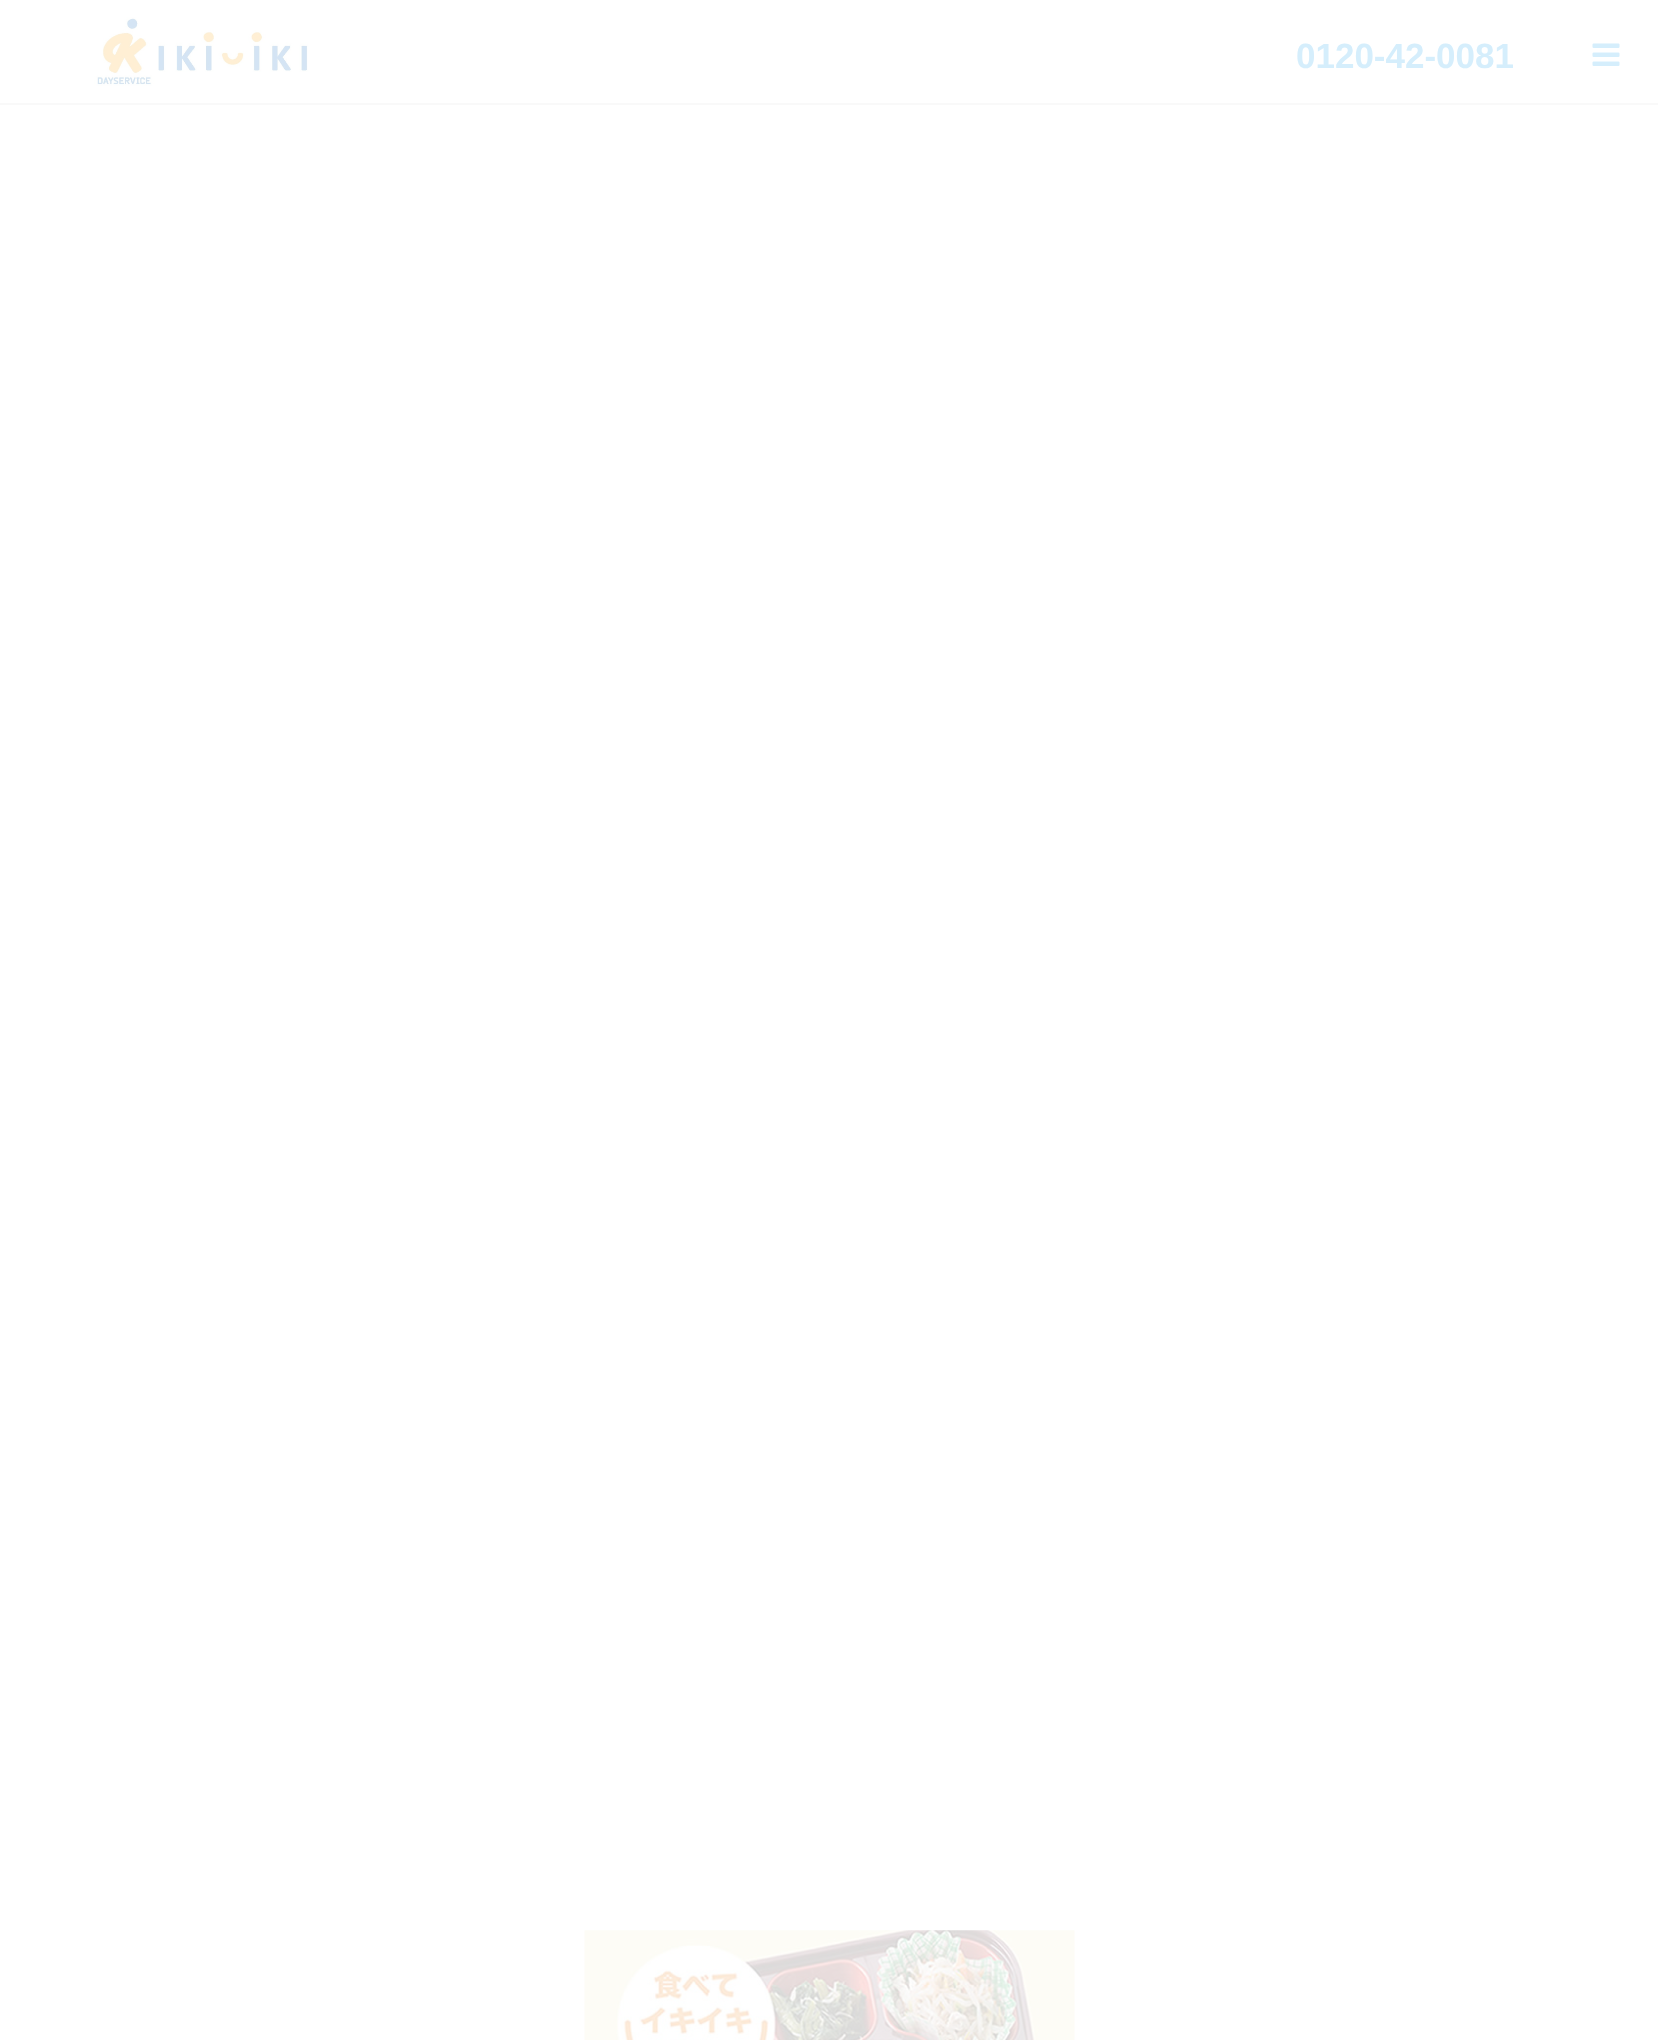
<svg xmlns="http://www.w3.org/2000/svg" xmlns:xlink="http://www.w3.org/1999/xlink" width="1658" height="2040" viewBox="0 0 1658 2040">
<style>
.cls-1{font:bold 35px Liberation Sans;fill:#d5eefc}
</style>
<rect width="100%" height="100%" fill="#ffffff"/>
<rect fill="#f9f9f9" x="0" y="103" width="1658" height="2"/>
<image xlink:href="image0.png" x="94" y="17" width="215" height="69"/>
<image xlink:href="image1.png" x="1592" y="43" width="28" height="23"/>
<image xlink:href="image2.png" x="584" y="1930" width="491" height="110"/>
<text class="cls-1" x="1296" y="68">0120-42-0081</text>
</svg>
